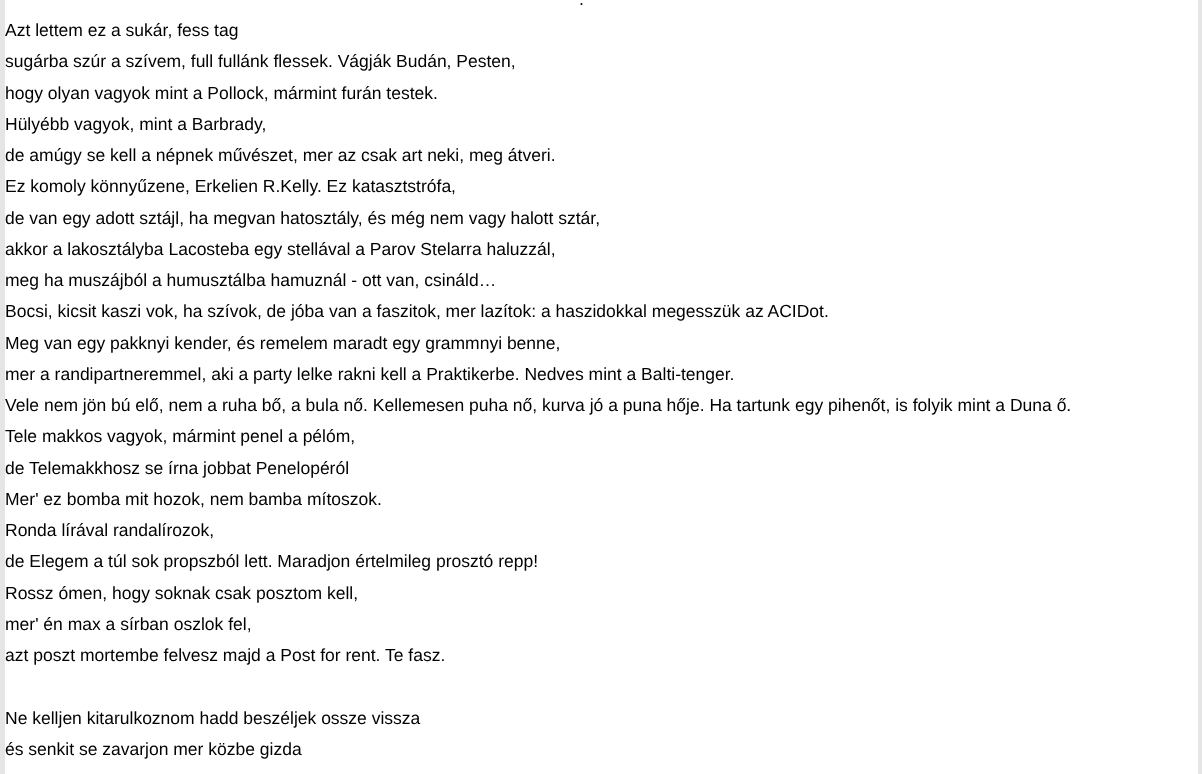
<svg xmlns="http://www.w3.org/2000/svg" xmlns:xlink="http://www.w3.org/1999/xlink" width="1202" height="774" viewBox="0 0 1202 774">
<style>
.cls-1{font:17.5px Liberation Sans;fill:#000000}
</style>
<rect width="100%" height="100%" fill="#e5e5e5"/>
<rect fill="#ffffff" x="5" y="0" width="1193" height="774"/>
<text class="cls-1" x="579" y="5">.</text>
<text class="cls-1"><tspan x="5" y="36">Azt lettem ez a sukár, fess tag</tspan><tspan x="5" y="67">sugárba szúr a szívem, full fullánk flessek. Vágják Budán, Pesten,</tspan><tspan x="5" y="99">hogy olyan vagyok mint a Pollock, mármint furán testek.</tspan><tspan x="5" y="130">Hülyébb vagyok, mint a Barbrady,</tspan><tspan x="5" y="161">de amúgy se kell a népnek művészet, mer az csak art neki, meg átveri.</tspan><tspan x="5" y="192">Ez komoly könnyűzene, Erkelien R.Kelly. Ez katasztstrófa,</tspan><tspan x="5" y="224">de van egy adott sztájl, ha megvan hatosztály, és még nem vagy halott sztár,</tspan><tspan x="5" y="255">akkor a lakosztályba Lacosteba egy stellával a Parov Stelarra haluzzál,</tspan><tspan x="5" y="286">meg ha muszájból a humusztálba hamuznál - ott van, csináld…</tspan><tspan x="5" y="317">Bocsi, kicsit kaszi vok, ha szívok, de jóba van a faszitok, mer lazítok: a haszidokkal megesszük az ACIDot.</tspan><tspan x="5" y="349">Meg van egy pakknyi kender, és remelem maradt egy grammnyi benne,</tspan><tspan x="5" y="380">mer a randipartneremmel, aki a party lelke rakni kell a Praktikerbe. Nedves mint a Balti-tenger.</tspan><tspan x="5" y="411">Vele nem jön bú elő, nem a ruha bő, a bula nő. Kellemesen puha nő, kurva jó a puna hője. Ha tartunk egy pihenőt, is folyik mint a Duna ő.</tspan><tspan x="5" y="442">Tele makkos vagyok, mármint penel a pélóm,</tspan><tspan x="5" y="474">de Telemakkhosz se írna jobbat Penelopéról</tspan><tspan x="5" y="505">Mer' ez bomba mit hozok, nem bamba mítoszok.</tspan><tspan x="5" y="536">Ronda lírával randalírozok,</tspan><tspan x="5" y="567">de Elegem a túl sok propszból lett. Maradjon értelmileg prosztó repp!</tspan><tspan x="5" y="599">Rossz ómen, hogy soknak csak posztom kell,</tspan><tspan x="5" y="630">mer' én max a sírban oszlok fel,</tspan><tspan x="5" y="661">azt poszt mortembe felvesz majd a Post for rent. Te fasz.</tspan></text>
<text class="cls-1"><tspan x="5" y="724">Ne kelljen kitarulkoznom hadd beszéljek ossze vissza</tspan><tspan x="5" y="755">és senkit se zavarjon mer közbe gizda</tspan></text>
</svg>
